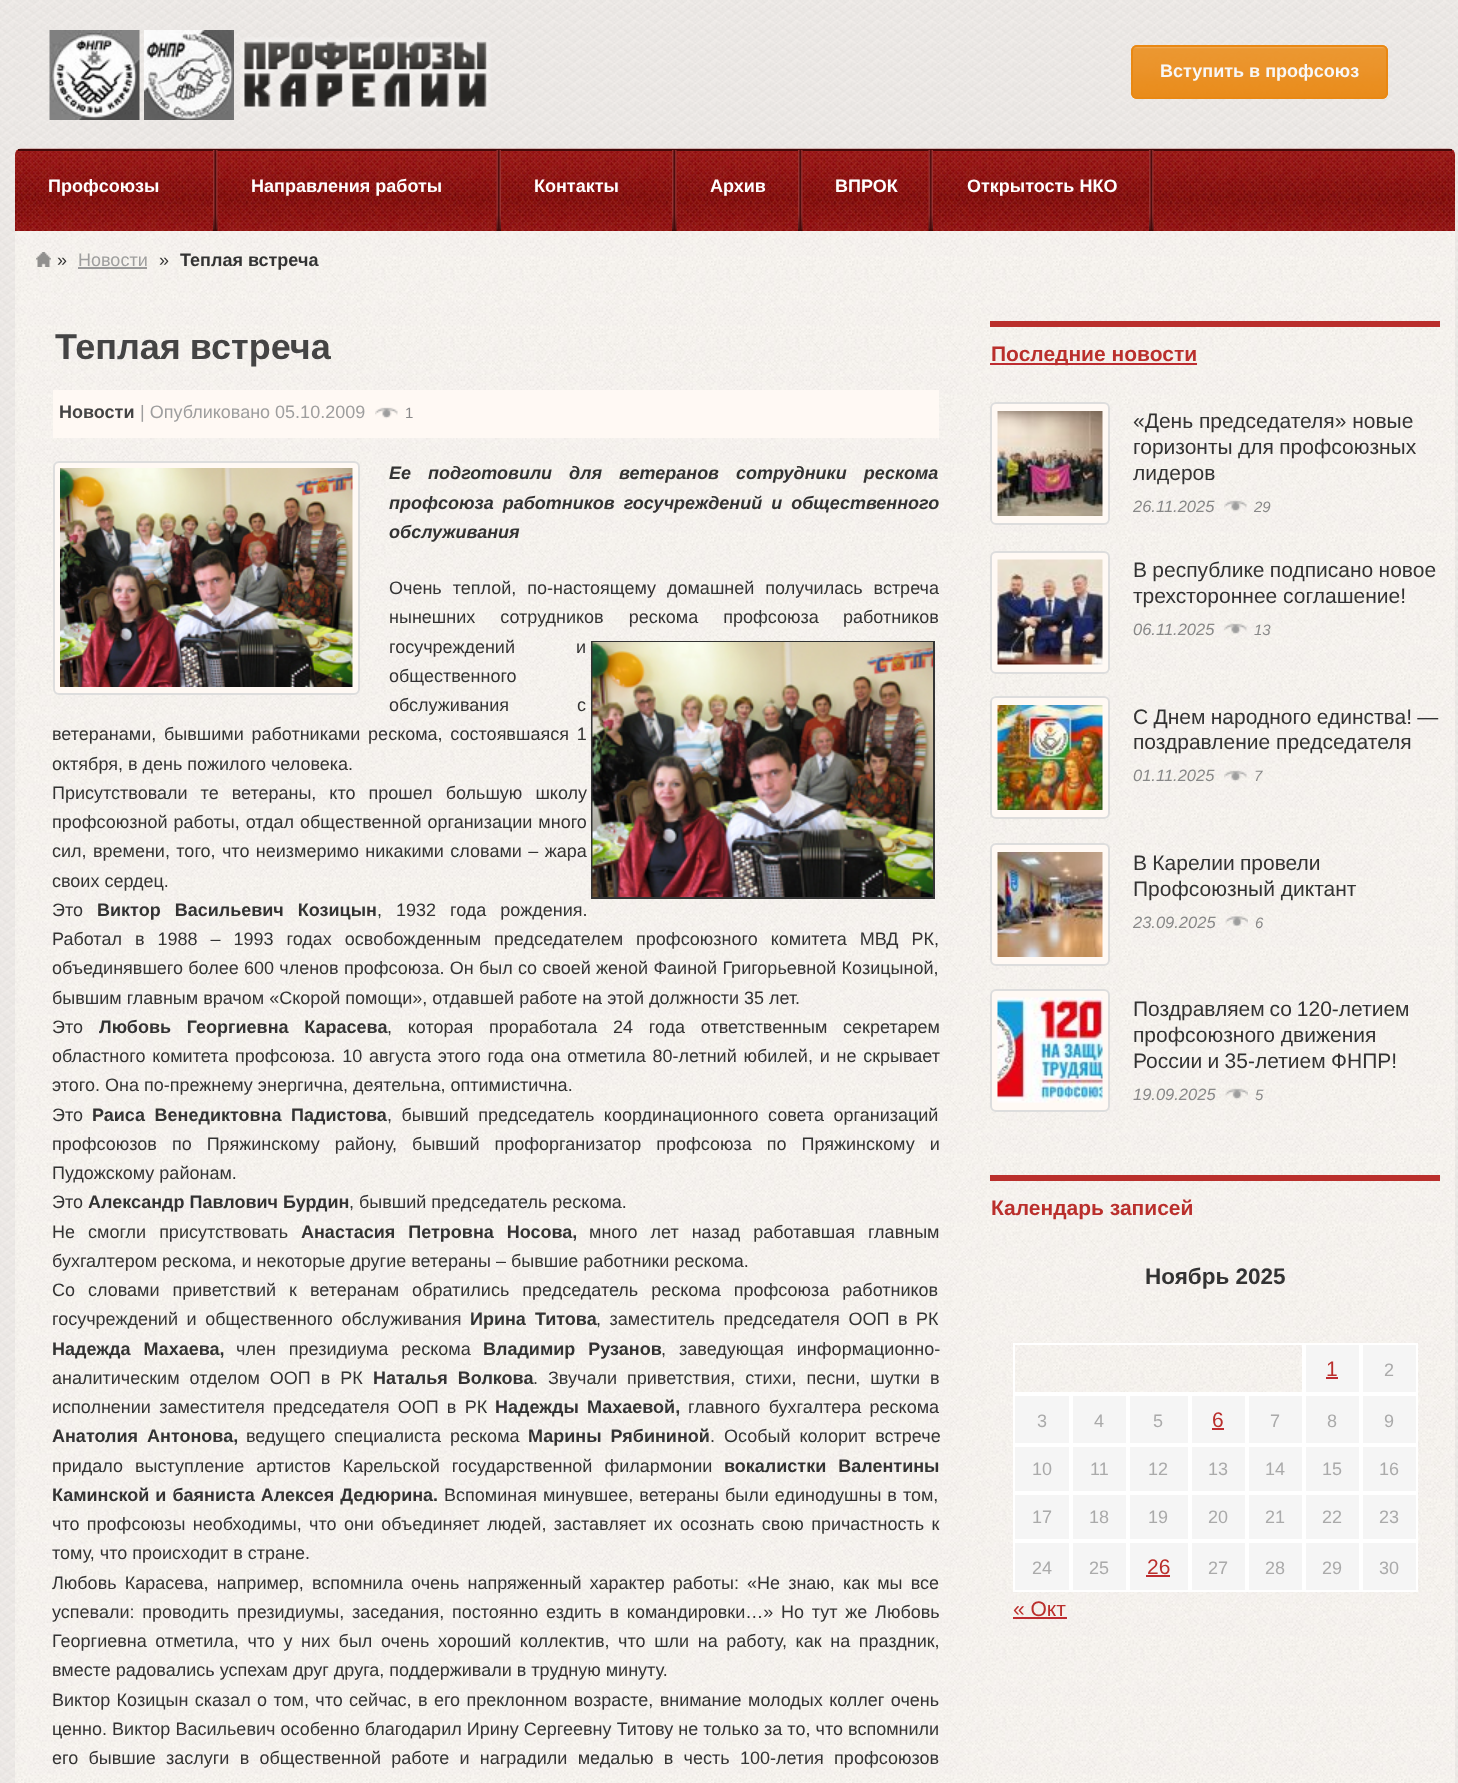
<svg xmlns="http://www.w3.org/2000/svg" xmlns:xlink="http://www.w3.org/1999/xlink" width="1458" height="1783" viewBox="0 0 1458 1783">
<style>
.cls-1{font:bold 18px Liberation Sans;fill:#f8f8f8}
.cls-2{font:bold 18px Liberation Sans;fill:#ffffff}
.cls-3{font:18px Liberation Sans;fill:#333333}
.cls-4{font:18px Liberation Sans;fill:#9e9e9e}
.cls-5{font:bold 18px Liberation Sans;fill:#333333}
.cls-6{font:bold 36px Liberation Sans;fill:#444444}
.cls-7{font:bold 18px Liberation Sans;fill:#444444}
.cls-8{font:15px Liberation Sans;fill:#888888}
.cls-9{font:italic bold 18px Liberation Sans;fill:#333333}
.cls-10{font:bold 21px Liberation Sans;fill:#ba2f2c}
.cls-11{font:21px Liberation Sans;fill:#333333}
.cls-12{font:italic 16.5px Liberation Sans;fill:#888888}
.cls-13{font:italic 15px Liberation Sans;fill:#888888}
.cls-14{font:bold 22.5px Liberation Sans;fill:#333333}
.cls-15{font:21px Liberation Sans;fill:#ba2f2c}
.cls-16{font:18px Liberation Sans;fill:#aaaaaa}
</style>
<rect width="100%" height="100%" fill="#ffffff"/>
<image xlink:href="image0.png" x="0" y="0" width="1458" height="1783"/>
<image xlink:href="image1.png" x="49" y="30" width="91" height="90"/>
<image xlink:href="image2.png" x="144" y="30" width="90" height="90"/>
<image xlink:href="image3.png" x="240" y="37" width="251" height="74"/>
<rect fill="#e98813" x="1131" y="45" width="257" height="54" rx="6"/>
<image xlink:href="image4.png" x="1131" y="46" width="257" height="53"/>
<rect fill="none" stroke="#e98813" stroke-width="2" x="1132" y="46" width="255" height="52" rx="5"/>
<image xlink:href="image5.png" x="15" y="148" width="1440" height="83"/>
<rect fill="#420808" x="18" y="149" width="1434" height="2"/>
<image xlink:href="image6.png" x="213" y="150" width="5" height="81"/>
<image xlink:href="image7.png" x="496" y="150" width="5" height="81"/>
<image xlink:href="image8.png" x="672" y="150" width="5" height="81"/>
<image xlink:href="image9.png" x="798" y="150" width="5" height="81"/>
<image xlink:href="image10.png" x="928" y="150" width="5" height="81"/>
<image xlink:href="image11.png" x="1149" y="150" width="5" height="81"/>
<image xlink:href="image12.png" x="15" y="231" width="1440" height="1552"/>
<image xlink:href="image13.png" x="36" y="252" width="15" height="15"/>
<rect fill="#999999" x="78" y="267" width="69" height="2"/>
<rect fill="#fff9f4" x="53" y="390" width="886" height="48"/>
<image xlink:href="image14.png" x="375" y="407" width="23" height="12"/>
<rect fill="#fff9f4" stroke="#dddddd" stroke-width="2" x="54" y="462" width="305" height="232" rx="5"/>
<image xlink:href="image15.png" x="60" y="468" width="293" height="219"/>
<rect fill="none" stroke="#333333" stroke-width="2" x="592" y="642" width="342" height="256"/>
<image xlink:href="image16.png" x="592" y="642" width="341" height="255"/>
<rect fill="#ba2f2c" x="990" y="321" width="450" height="6"/>
<rect fill="#be2c30" x="990" y="363" width="207" height="2"/>
<rect fill="#fff9f4" stroke="#dddddd" stroke-width="2" x="991" y="403" width="118" height="121" rx="5"/>
<image xlink:href="image17.png" x="997" y="411" width="106" height="105"/>
<image xlink:href="image18.png" x="1224" y="500" width="23" height="12"/>
<rect fill="#fff9f4" stroke="#dddddd" stroke-width="2" x="991" y="552" width="118" height="121" rx="5"/>
<image xlink:href="image19.png" x="997" y="559" width="106" height="106"/>
<image xlink:href="image20.png" x="1224" y="623" width="23" height="12"/>
<rect fill="#fff9f4" stroke="#dddddd" stroke-width="2" x="991" y="697" width="118" height="121" rx="5"/>
<image xlink:href="image21.png" x="997" y="705" width="106" height="105"/>
<image xlink:href="image22.png" x="1224" y="770" width="23" height="12"/>
<rect fill="#fff9f4" stroke="#dddddd" stroke-width="2" x="991" y="844" width="118" height="121" rx="5"/>
<image xlink:href="image23.png" x="997" y="852" width="106" height="105"/>
<image xlink:href="image24.png" x="1225" y="916" width="23" height="11"/>
<rect fill="#fff9f4" stroke="#dddddd" stroke-width="2" x="991" y="990" width="118" height="121" rx="5"/>
<image xlink:href="image25.png" x="997" y="997" width="106" height="106"/>
<image xlink:href="image26.png" x="1225" y="1088" width="23" height="12"/>
<rect fill="#ba2f2c" x="990" y="1175" width="450" height="6"/>
<rect fill="none" stroke="#ffffff" stroke-width="2" x="1014" y="1344" width="289" height="49"/>
<rect fill="#f5f5f5" stroke="#ffffff" stroke-width="2" x="1305" y="1344" width="55" height="49"/>
<rect fill="#be2c30" x="1326" y="1377" width="12" height="2"/>
<rect fill="#f5f5f5" stroke="#ffffff" stroke-width="2" x="1362" y="1344" width="55" height="49"/>
<rect fill="#f5f5f5" stroke="#ffffff" stroke-width="2" x="1014" y="1395" width="56" height="49"/>
<rect fill="#f5f5f5" stroke="#ffffff" stroke-width="2" x="1072" y="1395" width="55" height="49"/>
<rect fill="#f5f5f5" stroke="#ffffff" stroke-width="2" x="1129" y="1395" width="60" height="49"/>
<rect fill="#f5f5f5" stroke="#ffffff" stroke-width="2" x="1191" y="1395" width="55" height="49"/>
<rect fill="#be2c30" x="1212" y="1428" width="12" height="2"/>
<rect fill="#f5f5f5" stroke="#ffffff" stroke-width="2" x="1248" y="1395" width="55" height="49"/>
<rect fill="#f5f5f5" stroke="#ffffff" stroke-width="2" x="1305" y="1395" width="55" height="49"/>
<rect fill="#f5f5f5" stroke="#ffffff" stroke-width="2" x="1362" y="1395" width="55" height="49"/>
<rect fill="#f5f5f5" stroke="#ffffff" stroke-width="2" x="1014" y="1446" width="56" height="46"/>
<rect fill="#f5f5f5" stroke="#ffffff" stroke-width="2" x="1072" y="1446" width="55" height="46"/>
<rect fill="#f5f5f5" stroke="#ffffff" stroke-width="2" x="1129" y="1446" width="60" height="46"/>
<rect fill="#f5f5f5" stroke="#ffffff" stroke-width="2" x="1191" y="1446" width="55" height="46"/>
<rect fill="#f5f5f5" stroke="#ffffff" stroke-width="2" x="1248" y="1446" width="55" height="46"/>
<rect fill="#f5f5f5" stroke="#ffffff" stroke-width="2" x="1305" y="1446" width="55" height="46"/>
<rect fill="#f5f5f5" stroke="#ffffff" stroke-width="2" x="1362" y="1446" width="55" height="46"/>
<rect fill="#f5f5f5" stroke="#ffffff" stroke-width="2" x="1014" y="1494" width="56" height="46"/>
<rect fill="#f5f5f5" stroke="#ffffff" stroke-width="2" x="1072" y="1494" width="55" height="46"/>
<rect fill="#f5f5f5" stroke="#ffffff" stroke-width="2" x="1129" y="1494" width="60" height="46"/>
<rect fill="#f5f5f5" stroke="#ffffff" stroke-width="2" x="1191" y="1494" width="55" height="46"/>
<rect fill="#f5f5f5" stroke="#ffffff" stroke-width="2" x="1248" y="1494" width="55" height="46"/>
<rect fill="#f5f5f5" stroke="#ffffff" stroke-width="2" x="1305" y="1494" width="55" height="46"/>
<rect fill="#f5f5f5" stroke="#ffffff" stroke-width="2" x="1362" y="1494" width="55" height="46"/>
<rect fill="#f5f5f5" stroke="#ffffff" stroke-width="2" x="1014" y="1542" width="56" height="49"/>
<rect fill="#f5f5f5" stroke="#ffffff" stroke-width="2" x="1072" y="1542" width="55" height="49"/>
<rect fill="#f5f5f5" stroke="#ffffff" stroke-width="2" x="1129" y="1542" width="60" height="49"/>
<rect fill="#be2c30" x="1146" y="1575" width="24" height="2"/>
<rect fill="#f5f5f5" stroke="#ffffff" stroke-width="2" x="1191" y="1542" width="55" height="49"/>
<rect fill="#f5f5f5" stroke="#ffffff" stroke-width="2" x="1248" y="1542" width="55" height="49"/>
<rect fill="#f5f5f5" stroke="#ffffff" stroke-width="2" x="1305" y="1542" width="55" height="49"/>
<rect fill="#f5f5f5" stroke="#ffffff" stroke-width="2" x="1362" y="1542" width="55" height="49"/>
<rect fill="#be2c30" x="1013" y="1617" width="54" height="2"/>
<text class="cls-1" x="1160" y="77">Вступить в профсоюз</text>
<text class="cls-2" x="48" y="192">Профсоюзы</text>
<text class="cls-2" x="251" y="192">Направления работы</text>
<text class="cls-2" x="534" y="192">Контакты</text>
<text class="cls-2" x="710" y="192">Архив</text>
<text class="cls-2" x="835" y="192">ВПРОК</text>
<text class="cls-2" x="967" y="192">Открытость НКО</text>
<text class="cls-3" x="57" y="266">»</text>
<text class="cls-4" x="78" y="266">Новости</text>
<text class="cls-3" x="159" y="266">»</text>
<text class="cls-5" x="180" y="266">Теплая встреча</text>
<text class="cls-6" x="55" y="359" word-spacing="-1">Теплая встреча</text>
<text class="cls-7" x="59" y="418">Новости</text>
<text class="cls-4" x="140" y="418">| Опубликовано 05.10.2009</text>
<text class="cls-8" x="405" y="418">1</text>
<text class="cls-9"><tspan x="389" y="479" word-spacing="12">Ее подготовили для ветеранов сотрудники рескома</tspan><tspan x="389" y="509" word-spacing="4">профсоюза работников госучреждений и общественного</tspan><tspan x="389" y="538">обслуживания</tspan></text>
<text class="cls-3"><tspan x="389" y="594" word-spacing="6">Очень теплой, по-настоящему домашней получилась встреча</tspan><tspan x="389" y="623" word-spacing="20">нынешних сотрудников рескома профсоюза</tspan></text>
<text class="cls-3" x="843" y="623">работников</text>
<text class="cls-3"><tspan x="389" y="653" word-spacing="56">госучреждений и</tspan><tspan x="389" y="682">общественного</tspan><tspan x="389" y="711" word-spacing="63">обслуживания с</tspan></text>
<text class="cls-3"><tspan x="52" y="740" word-spacing="2.75">ветеранами, бывшими работниками рескома, состоявшаяся 1</tspan><tspan x="52" y="770">октября, в день пожилого человека.</tspan><tspan x="52" y="799" word-spacing="8">Присутствовали те ветераны, кто прошел большую школу</tspan><tspan x="52" y="828" word-spacing="1">профсоюзной работы, отдал общественной организации много</tspan><tspan x="52" y="857" word-spacing="1.4">сил, времени, того, что неизмеримо никакими словами – жара</tspan><tspan x="52" y="887">своих сердец.</tspan><tspan x="52" y="916">Это</tspan></text>
<text class="cls-5" x="97" y="916" word-spacing="9">Виктор Васильевич Козицын</text>
<text class="cls-3" x="377" y="916" word-spacing="9">, 1932 года рождения.</text>
<text class="cls-3"><tspan x="52" y="945" word-spacing="8">Работал в 1988 – 1993 годах освобожденным председателем профсоюзного комитета МВД РК,</tspan><tspan x="52" y="974" word-spacing="0.25">объединявшего более 600 членов профсоюза. Он был со своей женой Фаиной Григорьевной Козицыной,</tspan><tspan x="52" y="1004">бывшим главным врачом «Скорой помощи», отдавшей работе на этой должности 35 лет.</tspan><tspan x="52" y="1033">Это</tspan></text>
<text class="cls-5" x="99" y="1033" word-spacing="10.75">Любовь Георгиевна Карасева</text>
<text class="cls-3" x="387" y="1033" word-spacing="10.75">, которая проработала 24 года ответственным секретарем</text>
<text class="cls-3"><tspan x="52" y="1062" word-spacing="1.75">областного комитета профсоюза. 10 августа этого года она отметила 80-летний юбилей, и не скрывает</tspan><tspan x="52" y="1091">этого. Она по-прежнему энергична, деятельна, оптимистична.</tspan><tspan x="52" y="1121">Это</tspan></text>
<text class="cls-5" x="92" y="1121" word-spacing="4.5">Раиса Венедиктовна Падистова</text>
<text class="cls-3" x="387" y="1121" word-spacing="4.5">, бывший председатель координационного совета организаций</text>
<text class="cls-3"><tspan x="52" y="1150" word-spacing="10">профсоюзов по Пряжинскому району, бывший профорганизатор профсоюза по Пряжинскому и</tspan><tspan x="52" y="1179">Пудожскому районам.</tspan><tspan x="52" y="1208">Это</tspan></text>
<text class="cls-5" x="88" y="1208">Александр Павлович Бурдин</text>
<text class="cls-3" x="349" y="1208">, бывший председатель рескома.</text>
<text class="cls-3" x="52" y="1238" word-spacing="8">Не смогли присутствовать</text>
<text class="cls-5" x="301" y="1238" word-spacing="8">Анастасия Петровна Носова,</text>
<text class="cls-3" x="589" y="1238" word-spacing="8">много лет назад работавшая главным</text>
<text class="cls-3"><tspan x="52" y="1267">бухгалтером рескома, и некоторые другие ветераны – бывшие работники рескома.</tspan><tspan x="52" y="1296" word-spacing="8">Со словами приветствий к ветеранам обратились председатель рескома профсоюза работников</tspan><tspan x="52" y="1325" word-spacing="3.6">госучреждений и общественного обслуживания</tspan></text>
<text class="cls-5" x="470" y="1325" word-spacing="4">Ирина Титова</text>
<text class="cls-3" x="596" y="1325" word-spacing="3.6">, заместитель председателя ООП в РК</text>
<text class="cls-5" x="52" y="1355" word-spacing="8">Надежда Махаева,</text>
<text class="cls-3" x="236" y="1355" word-spacing="8">член президиума рескома</text>
<text class="cls-5" x="483" y="1355" word-spacing="8">Владимир Рузанов</text>
<text class="cls-3" x="661" y="1355" word-spacing="8">, заведующая информационно-</text>
<text class="cls-3" x="52" y="1384" word-spacing="5">аналитическим отделом ООП в РК</text>
<text class="cls-5" x="373" y="1384" word-spacing="5">Наталья Волкова</text>
<text class="cls-3" x="533" y="1384" word-spacing="5">. Звучали приветствия, стихи, песни, шутки в</text>
<text class="cls-3" x="52" y="1413" word-spacing="3.25">исполнении заместителя председателя ООП в РК</text>
<text class="cls-5" x="495" y="1413" word-spacing="3.25">Надежды Махаевой,</text>
<text class="cls-3" x="688" y="1413" word-spacing="3.25">главного бухгалтера рескома</text>
<text class="cls-5" x="52" y="1442" word-spacing="4">Анатолия Антонова,</text>
<text class="cls-3" x="246" y="1442" word-spacing="4">ведущего специалиста рескома</text>
<text class="cls-5" x="528" y="1442" word-spacing="4">Марины Рябининой</text>
<text class="cls-3" x="710" y="1442" word-spacing="4">. Особый колорит встрече</text>
<text class="cls-3" x="52" y="1472" word-spacing="7">придало выступление артистов Карельской государственной филармонии</text>
<text class="cls-5" x="724" y="1472" word-spacing="7">вокалистки Валентины</text>
<text class="cls-5" x="52" y="1501" word-spacing="1">Каминской и баяниста Алексея Дедюрина.</text>
<text class="cls-3" x="444" y="1501" word-spacing="1">Вспоминая минувшее, ветераны были единодушны в том,</text>
<text class="cls-3"><tspan x="52" y="1530" word-spacing="2.4">что профсоюзы необходимы, что они объединяет людей, заставляет их осознать свою причастность к</tspan><tspan x="52" y="1559">тому, что происходит в стране.</tspan><tspan x="52" y="1589" word-spacing="3.1">Любовь Карасева, например, вспомнила очень напряженный характер работы: «Не знаю, как мы все</tspan><tspan x="52" y="1618" word-spacing="2.75">успевали: проводить президиумы, заседания, постоянно ездить в командировки…» Но тут же Любовь</tspan><tspan x="52" y="1647" word-spacing="3.6">Георгиевна отметила, что у них был очень хороший коллектив, что шли на работу, как на праздник,</tspan><tspan x="52" y="1676">вместе радовались успехам друг друга, поддерживали в трудную минуту.</tspan><tspan x="52" y="1706" word-spacing="1.4">Виктор Козицын сказал о том, что сейчас, в его преклонном возрасте, внимание молодых коллег очень</tspan><tspan x="52" y="1735" word-spacing="0.1">ценно. Виктор Васильевич особенно благодарил Ирину Сергеевну Титову не только за то, что вспомнили</tspan><tspan x="52" y="1764" word-spacing="5.25">его бывшие заслуги в общественной работе и наградили медалью в честь 100-летия профсоюзов</tspan></text>
<text class="cls-10" x="991" y="361">Последние новости</text>
<text class="cls-11"><tspan x="1133" y="428">«День председателя» новые</tspan><tspan x="1133" y="454" word-spacing="-0.5">горизонты для профсоюзных</tspan><tspan x="1133" y="480">лидеров</tspan></text>
<text class="cls-12" x="1133" y="512">26.11.2025</text>
<text class="cls-13" x="1254" y="512">29</text>
<text class="cls-11"><tspan x="1133" y="577" word-spacing="-0.5">В республике подписано новое</tspan><tspan x="1133" y="603">трехстороннее соглашение!</tspan></text>
<text class="cls-12" x="1133" y="635">06.11.2025</text>
<text class="cls-13" x="1254" y="635">13</text>
<text class="cls-11"><tspan x="1133" y="724" word-spacing="-0.5">С Днем народного единства! —</tspan><tspan x="1133" y="749">поздравление председателя</tspan></text>
<text class="cls-12" x="1133" y="781">01.11.2025</text>
<text class="cls-13" x="1254" y="781">7</text>
<text class="cls-11"><tspan x="1133" y="870" word-spacing="-0.5">В Карелии провели</tspan><tspan x="1133" y="896">Профсоюзный диктант</tspan></text>
<text class="cls-12" x="1133" y="928">23.09.2025</text>
<text class="cls-13" x="1255" y="928">6</text>
<text class="cls-11"><tspan x="1133" y="1016" word-spacing="-1">Поздравляем со 120-летием</tspan><tspan x="1133" y="1042">профсоюзного движения</tspan><tspan x="1133" y="1068" word-spacing="-0.5">России и 35-летием ФНПР!</tspan></text>
<text class="cls-12" x="1133" y="1100">19.09.2025</text>
<text class="cls-13" x="1255" y="1100">5</text>
<text class="cls-10" x="991" y="1215">Календарь записей</text>
<text class="cls-14" x="1145" y="1284">Ноябрь 2025</text>
<text class="cls-15" x="1326" y="1376">1</text>
<text class="cls-16" x="1384" y="1376">2</text>
<text class="cls-16" x="1037" y="1427">3</text>
<text class="cls-16" x="1094" y="1427">4</text>
<text class="cls-16" x="1153" y="1427">5</text>
<text class="cls-15" x="1212" y="1427">6</text>
<text class="cls-16" x="1270" y="1427">7</text>
<text class="cls-16" x="1327" y="1427">8</text>
<text class="cls-16" x="1384" y="1427">9</text>
<text class="cls-16" x="1032" y="1475">10</text>
<text class="cls-16" x="1090" y="1475">11</text>
<text class="cls-16" x="1148" y="1475">12</text>
<text class="cls-16" x="1208" y="1475">13</text>
<text class="cls-16" x="1265" y="1475">14</text>
<text class="cls-16" x="1322" y="1475">15</text>
<text class="cls-16" x="1379" y="1475">16</text>
<text class="cls-16" x="1032" y="1523">17</text>
<text class="cls-16" x="1089" y="1523">18</text>
<text class="cls-16" x="1148" y="1523">19</text>
<text class="cls-16" x="1208" y="1523">20</text>
<text class="cls-16" x="1265" y="1523">21</text>
<text class="cls-16" x="1322" y="1523">22</text>
<text class="cls-16" x="1379" y="1523">23</text>
<text class="cls-16" x="1032" y="1574">24</text>
<text class="cls-16" x="1089" y="1574">25</text>
<text class="cls-15" x="1147" y="1574">26</text>
<text class="cls-16" x="1208" y="1574">27</text>
<text class="cls-16" x="1265" y="1574">28</text>
<text class="cls-16" x="1322" y="1574">29</text>
<text class="cls-16" x="1379" y="1574">30</text>
<text class="cls-15" x="1013" y="1616">« Окт</text>
</svg>
